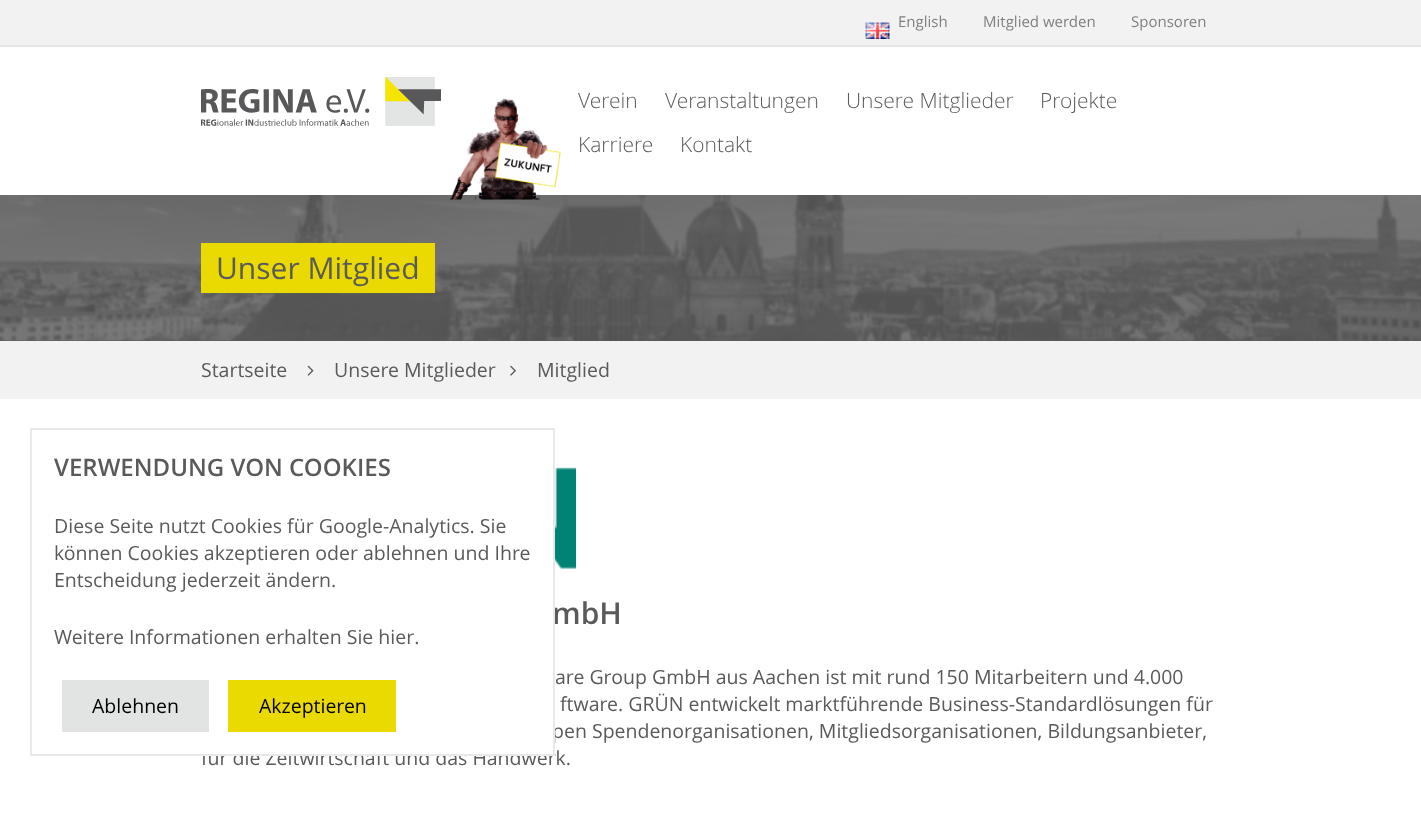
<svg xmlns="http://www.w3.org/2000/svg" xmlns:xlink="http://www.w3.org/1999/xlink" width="1421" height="819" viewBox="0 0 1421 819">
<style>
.cls-1{font:15px Open Sans;fill:#808080}
.cls-2{font:300 21px Open Sans;fill:#5a5a5a}
.cls-3{font:30px Open Sans;fill:#5a5a5a}
.cls-4{font:19.5px Open Sans;fill:#5a5a5a}
.cls-5{font:600 30px Open Sans;fill:#5a5a5a}
.cls-6{font:600 24px Open Sans;fill:#5a5a5a}
.cls-7{font:19.5px Open Sans;fill:#000000}
</style>
<rect width="100%" height="100%" fill="#ffffff"/>
<rect fill="#f2f2f2" x="0" y="0" width="1421" height="45"/>
<rect fill="#e5e5e5" x="0" y="45" width="1421" height="2"/>
<image xlink:href="image0.png" x="865" y="22" width="25" height="17"/>
<image xlink:href="image1.png" x="201" y="77" width="240" height="49"/>
<rect fill="#5a5a5a" x="0" y="340" width="1421" height="1"/>
<image xlink:href="image3.png" x="0" y="195" width="1421" height="146"/>
<image xlink:href="image2.png" x="450" y="98" width="111" height="102"/>
<rect fill="#f2f2f2" x="0" y="341" width="1421" height="58"/>
<path fill="#eada02" d="M201 243V293H405V292H216V243Z"/>
<path fill="#eada02" d="M231 292V293H435V243H420V292Z"/>
<rect fill="#eada02" x="216" y="243" width="204" height="49"/>
<image xlink:href="image4.png" x="307" y="365" width="7" height="11"/>
<image xlink:href="image5.png" x="510" y="365" width="6" height="11"/>
<image xlink:href="image6.png" x="555" y="467" width="21" height="102"/>
<text class="cls-1" x="898" y="27">English</text>
<text class="cls-1" x="983" y="27">Mitglied werden</text>
<text class="cls-1" x="1131" y="27">Sponsoren</text>
<text class="cls-2" x="578" y="108">Verein</text>
<text class="cls-2" x="665" y="108">Veranstaltungen</text>
<text class="cls-2" x="846" y="108">Unsere Mitglieder</text>
<text class="cls-2" x="1040" y="108">Projekte</text>
<text class="cls-2" x="578" y="152">Karriere</text>
<text class="cls-2" x="680" y="152">Kontakt</text>
<text class="cls-3" x="216" y="279">Unser Mitglied</text>
<text class="cls-4" x="201" y="377">Startseite</text>
<text class="cls-4" x="334" y="377">Unsere Mitglieder</text>
<text class="cls-4" x="537" y="377">Mitglied</text>
<text class="cls-5" x="552" y="624">mbH</text>
<text class="cls-4" x="555" y="684">are Group GmbH aus Aachen ist mit rund 150 Mitarbeitern und 4.000</text>
<text class="cls-4" x="560" y="711">ftware. GRÜN entwickelt marktführende Business-Standardlösungen für</text>
<text class="cls-4" x="552" y="738">pen Spendenorganisationen, Mitgliedsorganisationen, Bildungsanbieter,</text>
<text class="cls-4" x="201" y="765">für die Zeitwirtschaft und das Handwerk.</text>
<rect fill="#ffffff" x="203" y="750" width="317" height="4"/>
<rect fill="none" stroke="#e9e9e9" stroke-width="2" x="31" y="429" width="523" height="326"/>
<text class="cls-6" x="54" y="476">VERWENDUNG VON COOKIES</text>
<text class="cls-4"><tspan x="54" y="533">Diese Seite nutzt Cookies für Google-Analytics. Sie</tspan><tspan x="54" y="560">können Cookies akzeptieren oder ablehnen und Ihre</tspan><tspan x="54" y="587">Entscheidung jederzeit ändern.</tspan></text>
<text class="cls-4" x="54" y="644">Weitere Informationen erhalten Sie hier.</text>
<rect fill="#e2e3e3" x="62" y="680" width="147" height="52"/>
<text class="cls-7" x="92" y="713">Ablehnen</text>
<rect fill="#eada02" x="228" y="680" width="168" height="52"/>
<text class="cls-7" x="259" y="713">Akzeptieren</text>
</svg>
